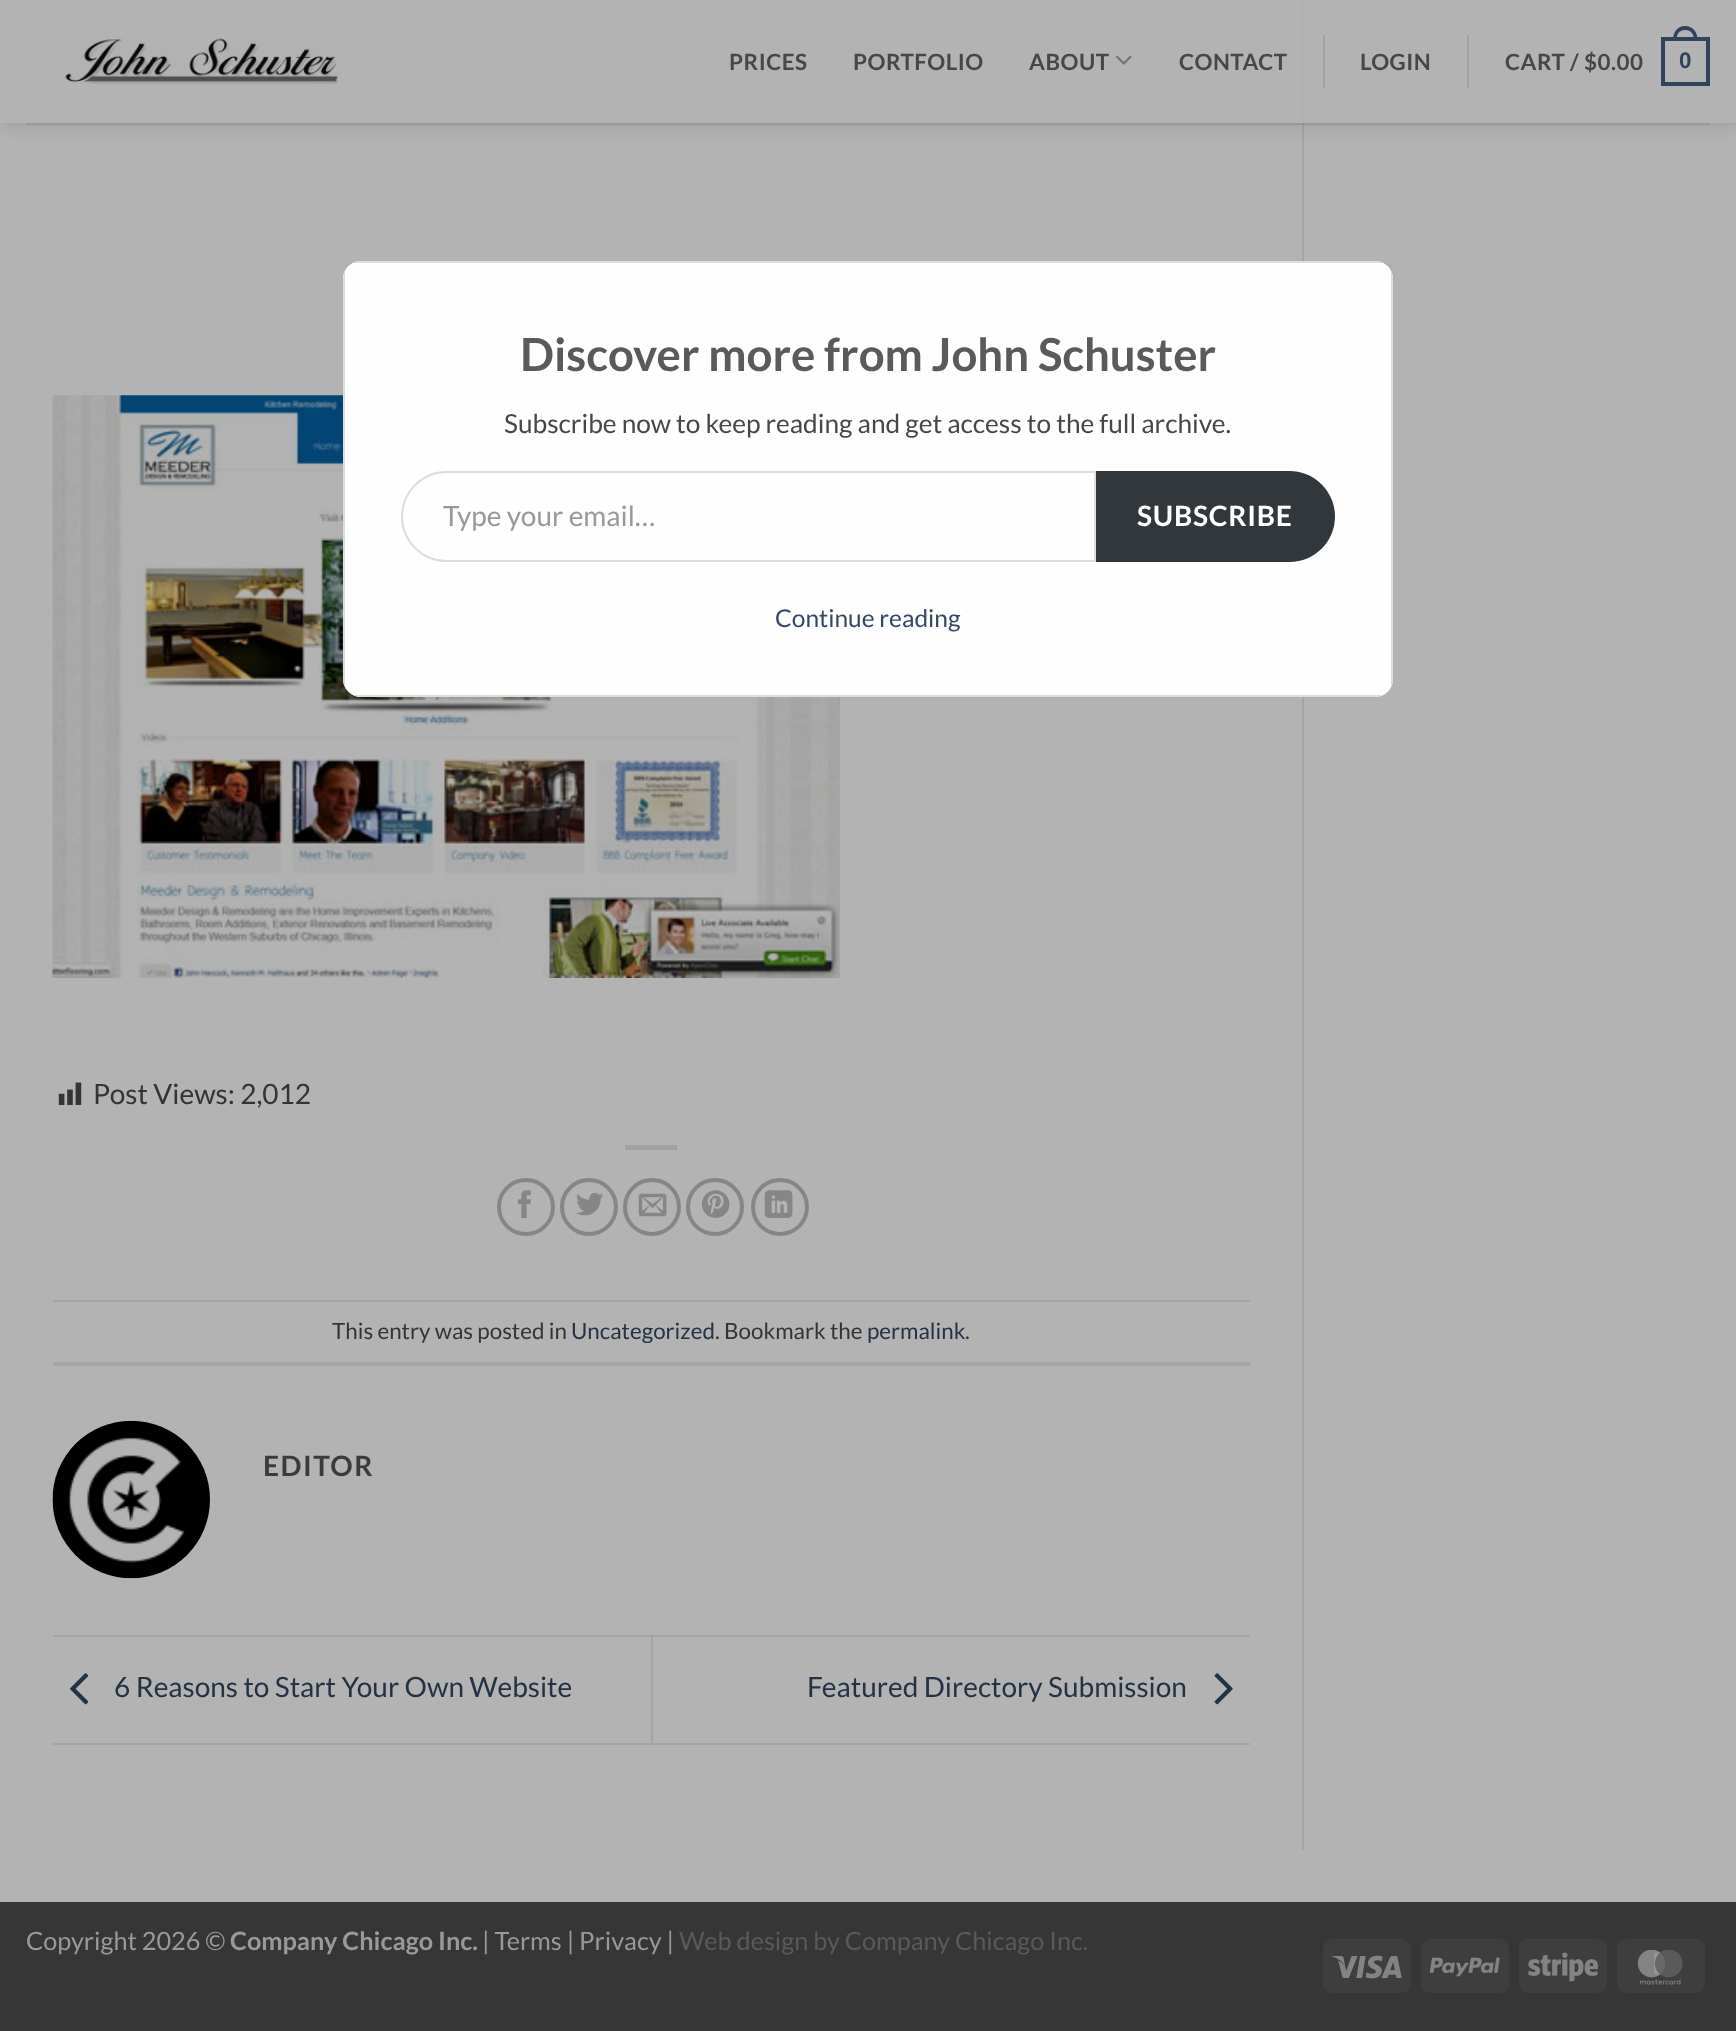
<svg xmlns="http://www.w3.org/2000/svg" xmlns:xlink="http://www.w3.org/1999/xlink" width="1736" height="2031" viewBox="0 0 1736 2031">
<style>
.cls-1{font:bold 22.4px Lato;letter-spacing:0.5px;fill:#474747}
.cls-2{font:bold 22.4px Liberation Sans;letter-spacing:0.5px;fill:#30435c}
.cls-3{font:28px Lato;fill:#343434}
.cls-4{font:22.4px Lato;fill:#343434}
.cls-5{font:22.4px Lato;fill:#243245}
.cls-6{font:bold 28px Lato;letter-spacing:1.5px;fill:#3b3b3b}
.cls-7{font:28px Lato;fill:#243245}
.cls-8{font:25.25px Lato;fill:#999999}
.cls-9{font:bold 25.25px Lato;fill:#999999}
.cls-10{font:25.25px Lato;fill:#5a5a5a}
.cls-11{font:bold 45.5px Lato;fill:#5a5a5a}
.cls-12{font:26.25px Lato;fill:#474747}
.cls-13{font:28px Lato;fill:#999999}
.cls-14{font:bold 28px Lato;letter-spacing:0.75px;fill:#ffffff}
.cls-15{font:24.5px Lato;fill:#334862}
</style>
<defs>
<clipPath id="clip1"><path d="M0 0H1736V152H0ZM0 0H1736V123H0Z" clip-rule="evenodd"/></clipPath>
</defs>
<rect width="100%" height="100%" fill="#b3b3b3"/>
<rect fill="#a5a5a5" x="1302" y="0" width="2" height="1850"/>
<g clip-path="url(#clip1)">
<rect fill="#000000" fill-opacity="0.15" filter="blur(9px)" x="2" y="2" width="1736" height="122"/>
</g>
<rect fill="#b3b3b3" fill-opacity="0.9" x="0" y="0" width="1736" height="123"/>
<image xlink:href="image0.png" x="65" y="38" width="273" height="46"/>
<image xlink:href="image1.png" x="1116" y="55" width="16" height="10"/>
<rect fill="#a1a1a1" x="1323" y="35" width="2" height="53"/>
<rect fill="#a1a1a1" x="1467" y="35" width="2" height="53"/>
<rect fill="none" stroke="#30435c" stroke-width="4" x="1663" y="39" width="45" height="45"/>
<path fill="#30435c" fill-rule="evenodd" d="M1685 26C1693.5 26 1697.5 32.5 1697.5 40H1673C1673 32.5 1677 26 1685 26ZM1685 30C1691.5 30 1694 34.5 1694 40H1676.5C1676.5 34.5 1679 30 1685 30Z"/>
<rect fill="#343434" fill-opacity="0.1" x="26" y="123" width="1684" height="2"/>
<image xlink:href="image2.png" x="52" y="395" width="788" height="583"/>
<image xlink:href="image3.png" x="58" y="1082" width="24" height="23"/>
<rect fill="#a1a1a1" x="625" y="1145" width="52" height="5"/>
<circle fill="none" stroke="#868686" stroke-width="4" cx="526" cy="1207" r="27"/>
<image xlink:href="image4.png" x="517" y="1190" width="14" height="28"/>
<circle fill="none" stroke="#868686" stroke-width="4" cx="589" cy="1207" r="27"/>
<image xlink:href="image5.png" x="576" y="1192" width="28" height="24"/>
<circle fill="none" stroke="#868686" stroke-width="4" cx="652" cy="1207" r="27"/>
<image xlink:href="image6.png" x="638" y="1193" width="29" height="24"/>
<circle fill="none" stroke="#868686" stroke-width="4" cx="715" cy="1207" r="27"/>
<image xlink:href="image7.png" x="701" y="1190" width="29" height="28"/>
<circle fill="none" stroke="#868686" stroke-width="4" cx="780" cy="1207" r="27"/>
<image xlink:href="image8.png" x="764" y="1190" width="29" height="28"/>
<rect fill="#a5a5a5" x="53" y="1300" width="1197" height="2"/>
<rect fill="#a5a5a5" x="53" y="1362" width="1197" height="4"/>
<image xlink:href="image9.png" x="52" y="1420" width="158" height="159"/>
<rect fill="#a5a5a5" x="53" y="1635" width="1197" height="2"/>
<rect fill="#a5a5a5" x="53" y="1743" width="1197" height="2"/>
<image xlink:href="image10.png" x="70" y="1673" width="19" height="32"/>
<rect fill="#a5a5a5" x="651" y="1636" width="2" height="107"/>
<image xlink:href="image11.png" x="1214" y="1673" width="19" height="32"/>
<rect fill="#363636" x="0" y="1902" width="1736" height="129"/>
<rect fill="#3e3e3e" x="1323" y="1939" width="88" height="54" rx="9"/>
<image xlink:href="image12.png" x="1332" y="1955" width="70" height="24"/>
<rect fill="#3e3e3e" x="1421" y="1939" width="88" height="54" rx="9"/>
<image xlink:href="image13.png" x="1430" y="1957" width="70" height="20"/>
<rect fill="#3e3e3e" x="1519" y="1939" width="88" height="54" rx="9"/>
<image xlink:href="image14.png" x="1528" y="1952" width="70" height="30"/>
<rect fill="#3e3e3e" x="1617" y="1939" width="88" height="54" rx="9"/>
<image xlink:href="image15.png" x="1637" y="1950" width="46" height="35"/>
<rect fill="#fefefe" x="343" y="261" width="1050" height="436" rx="18"/>
<path fill="#dddddd" fill-rule="evenodd" d="M343 279V679C343 682 344 685 345 687V271C344 273 343 276 343 279ZM361 261C358 261 355 262 353 263H1383C1381 262 1378 261 1375 261ZM1393 279C1393 276 1392 273 1391 271V687C1392 685 1393 682 1393 679ZM1375 697C1378 697 1381 696 1383 695H353C355 696 358 697 361 697Z"/>
<path fill="none" stroke="#dddddd" stroke-width="2" d="M446.5 472H1095V561H446.5C422 561 402 541 402 516.5C402 492 422 472 446.5 472Z"/>
<path fill="#32373c" d="M1096 471H1289.5C1314.5 471 1335 491.5 1335 516.5C1335 541.5 1314.5 562 1289.5 562H1096Z"/>
<text class="cls-1" x="729" y="70">PRICES</text>
<text class="cls-1" x="853" y="70">PORTFOLIO</text>
<text class="cls-1" x="1029" y="70">ABOUT</text>
<text class="cls-1" x="1179" y="70">CONTACT</text>
<text class="cls-1" x="1360" y="70">LOGIN</text>
<text class="cls-1" x="1505" y="70">CART / $0.00</text>
<text class="cls-2" x="1679" y="68">0</text>
<text class="cls-3" x="93" y="1104">Post Views: 2,012</text>
<text class="cls-4" x="332" y="1339">This entry was posted in</text>
<text class="cls-5" x="571" y="1339">Uncategorized</text>
<text class="cls-4" x="715" y="1339">. Bookmark the</text>
<text class="cls-5" x="867" y="1339">permalink</text>
<text class="cls-4" x="965" y="1339">.</text>
<text class="cls-6" x="263" y="1476">EDITOR</text>
<text class="cls-7" x="114" y="1697">6 Reasons to Start Your Own Website</text>
<text class="cls-7" x="807" y="1697">Featured Directory Submission</text>
<text class="cls-8" x="26" y="1950">Copyright 2026 ©</text>
<text class="cls-9" x="230" y="1950">Company Chicago Inc.</text>
<text class="cls-8" x="482" y="1950">| Terms | Privacy |</text>
<text class="cls-10" x="679" y="1950">Web design by Company Chicago Inc.</text>
<text class="cls-11" x="520" y="371">Discover more from John Schuster</text>
<text class="cls-12" x="504" y="433">Subscribe now to keep reading and get access to the full archive.</text>
<text class="cls-13" x="443" y="526">Type your email…</text>
<text class="cls-14" x="1137" y="526">SUBSCRIBE</text>
<text class="cls-15" x="775" y="627">Continue reading</text>
</svg>
